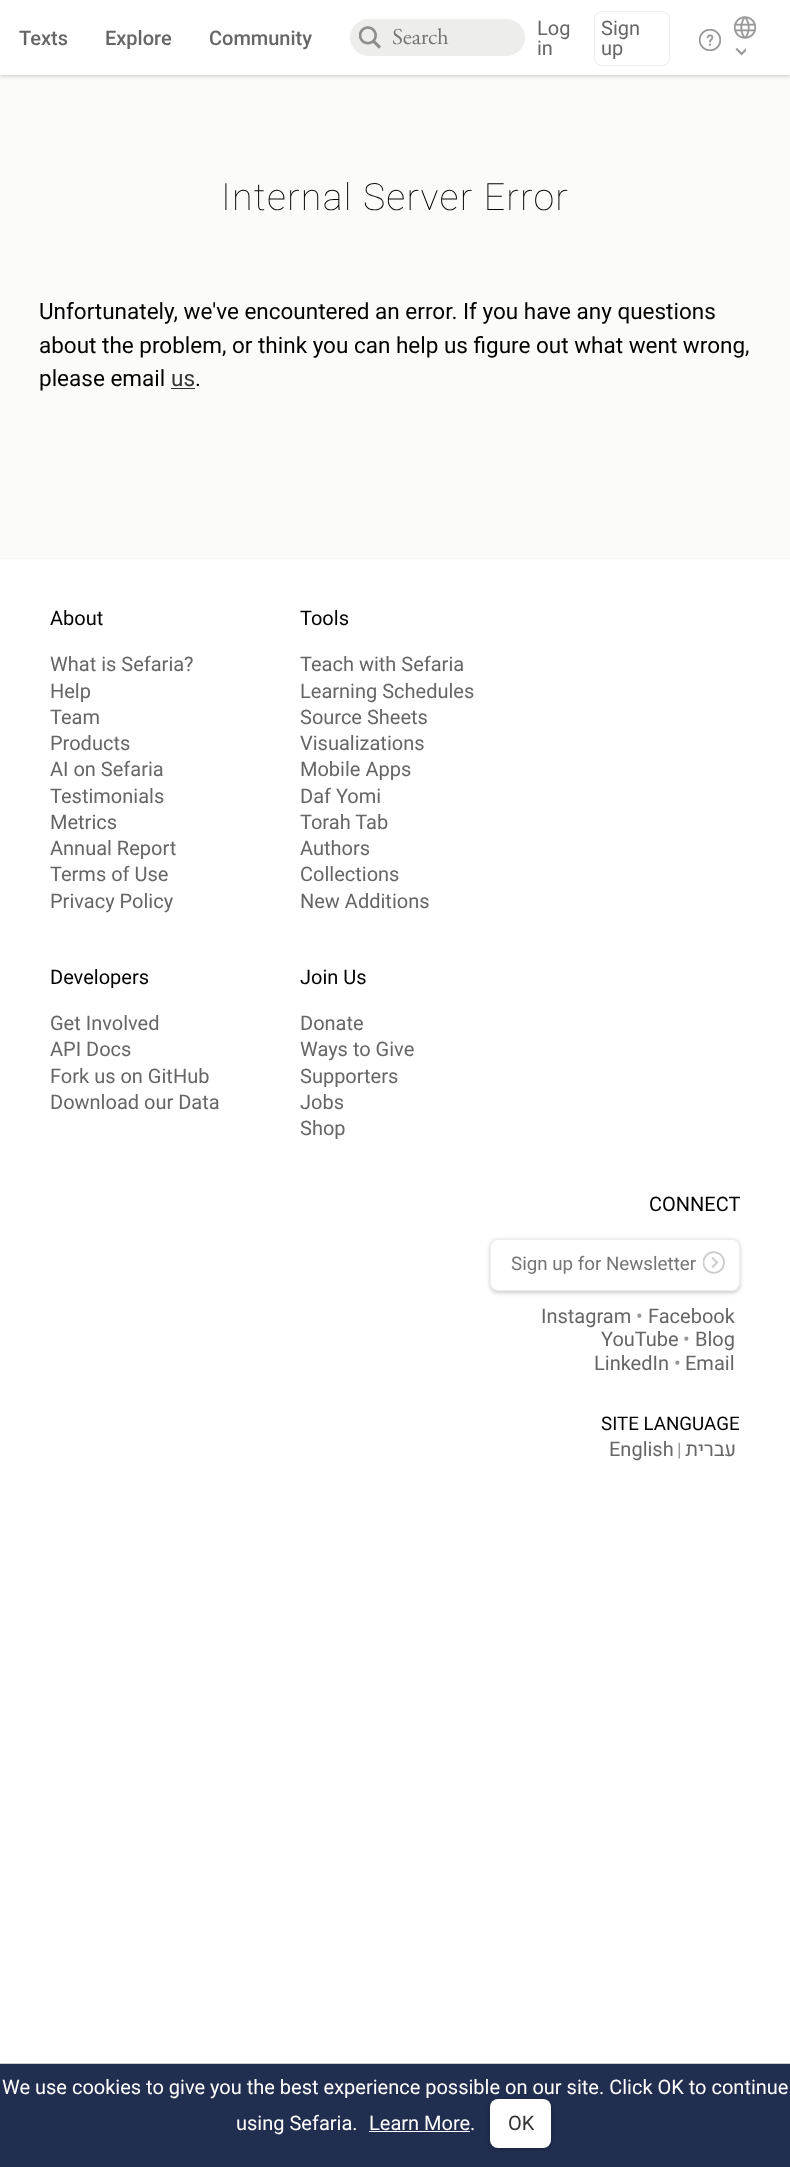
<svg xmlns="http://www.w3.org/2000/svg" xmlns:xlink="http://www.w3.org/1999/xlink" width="790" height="2167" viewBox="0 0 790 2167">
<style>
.cls-1{font:500 20px Roboto;fill:#666666}
.cls-2{font:22.5px Adobe Garamond;fill:#757575}
.cls-3{font:20px Roboto;fill:#666666}
.cls-4{font:20px Roboto;fill:#ffffff}
.cls-5{font:20px Roboto;fill:#333333}
.cls-6{font:100 37.5px Roboto;letter-spacing:1.25px;fill:#000000}
.cls-7{font:22.5px Roboto;fill:#000000}
.cls-8{font:22.5px Roboto;fill:#333333}
.cls-9{font:20px Roboto;fill:#000000}
.cls-10{font:18.75px Roboto;fill:#757575}
.cls-11{font:20px Roboto;fill:#999999}
.cls-12{font:18.75px Roboto;fill:#000000}
.cls-13{font:18.75px Roboto;fill:#999999}
.cls-14{font:20px Heebo;direction:rtl;fill:#666666}
</style>
<rect width="100%" height="100%" fill="#ffffff"/>
<rect fill="#fbfbfa" x="0" y="75" width="790" height="483"/>
<rect fill="#000000" fill-opacity="0.2" filter="blur(2px)" x="0" y="1" width="790" height="75"/>
<rect fill="#ffffff" x="0" y="0" width="790" height="75"/>
<rect fill="#ededec" x="350" y="19" width="175" height="37" rx="18.5"/>
<image xlink:href="image0.png" x="359" y="26" width="22" height="23"/>
<rect fill="none" stroke="#ededec" x="594.5" y="11.5" width="75" height="54" rx="7.5"/>
<image xlink:href="image1.png" x="699" y="29" width="22" height="22"/>
<image xlink:href="image2.png" x="734" y="16" width="22" height="23"/>
<image xlink:href="image3.png" x="735" y="48" width="11" height="8"/>
<rect fill="#212e50" x="0" y="2064" width="790" height="103"/>
<rect fill="#cccccc" x="0" y="2063" width="790" height="1"/>
<rect fill="#ffffff" x="369" y="2131" width="101" height="1"/>
<rect fill="#000000" fill-opacity="0.25" filter="blur(2px)" x="490" y="2100" width="61" height="49" rx="8"/>
<rect fill="#ffffff" x="490" y="2099" width="61" height="49" rx="8"/>
<rect fill="#333333" x="171" y="388" width="24" height="1"/>
<rect fill="#f4f4f4" x="0" y="558" width="790" height="1"/>
<rect fill="#000000" fill-opacity="0.2" filter="blur(2px)" x="490" y="1240" width="250" height="53" rx="8"/>
<rect fill="#ffffff" stroke="#eeeeee" x="490.5" y="1239.5" width="249" height="51" rx="7.5"/>
<image xlink:href="image4.png" x="703" y="1251" width="22" height="23"/>
<text class="cls-1" x="19" y="45">Texts</text>
<text class="cls-1" x="105" y="45">Explore</text>
<text class="cls-1" x="209" y="45">Community</text>
<text class="cls-2" x="392" y="44">Search</text>
<text class="cls-3"><tspan x="537" y="35">Log</tspan><tspan x="537" y="55">in</tspan></text>
<text class="cls-3"><tspan x="601" y="35">Sign</tspan><tspan x="601" y="55">up</tspan></text>
<text class="cls-4" x="2" y="2094">We use cookies to give you the best experience possible on our site. Click OK to continue</text>
<text class="cls-4" x="236" y="2130">using Sefaria.</text>
<text class="cls-4" x="369" y="2130">Learn More.</text>
<text class="cls-5" x="508" y="2130">OK</text>
<text class="cls-6" x="221" y="210">Internal Server Error</text>
<text class="cls-7"><tspan x="39" y="319">Unfortunately, we've encountered an error. If you have any questions</tspan><tspan x="39" y="353">about the problem, or think you can help us figure out what went wrong,</tspan><tspan x="39" y="386">please email</tspan></text>
<text class="cls-8" x="171" y="386">us</text>
<text class="cls-7" x="195" y="386">.</text>
<text class="cls-9" x="50" y="625">About</text>
<text class="cls-3"><tspan x="50" y="671">What is Sefaria?</tspan><tspan x="50" y="698">Help</tspan><tspan x="50" y="724">Team</tspan><tspan x="50" y="750">Products</tspan><tspan x="50" y="776">AI on Sefaria</tspan><tspan x="50" y="803">Testimonials</tspan><tspan x="50" y="829">Metrics</tspan><tspan x="50" y="855">Annual Report</tspan><tspan x="50" y="881">Terms of Use</tspan><tspan x="50" y="908">Privacy Policy</tspan></text>
<text class="cls-9" x="300" y="625">Tools</text>
<text class="cls-3"><tspan x="300" y="671">Teach with Sefaria</tspan><tspan x="300" y="698">Learning Schedules</tspan><tspan x="300" y="724">Source Sheets</tspan><tspan x="300" y="750">Visualizations</tspan><tspan x="300" y="776">Mobile Apps</tspan><tspan x="300" y="803">Daf Yomi</tspan><tspan x="300" y="829">Torah Tab</tspan><tspan x="300" y="855">Authors</tspan><tspan x="300" y="881">Collections</tspan><tspan x="300" y="908">New Additions</tspan></text>
<text class="cls-9" x="50" y="984">Developers</text>
<text class="cls-3"><tspan x="50" y="1030">Get Involved</tspan><tspan x="50" y="1056">API Docs</tspan><tspan x="50" y="1083">Fork us on GitHub</tspan><tspan x="50" y="1109">Download our Data</tspan></text>
<text class="cls-9" x="300" y="984">Join Us</text>
<text class="cls-3"><tspan x="300" y="1030">Donate</tspan><tspan x="300" y="1056">Ways to Give</tspan><tspan x="300" y="1083">Supporters</tspan><tspan x="300" y="1109">Jobs</tspan><tspan x="300" y="1135">Shop</tspan></text>
<text class="cls-9" x="649" y="1211">CONNECT</text>
<text class="cls-10" x="511" y="1270">Sign up for Newsletter</text>
<text class="cls-3" x="541" y="1323">Instagram</text>
<text class="cls-11" x="636" y="1323">•</text>
<text class="cls-3" x="648" y="1323">Facebook</text>
<text class="cls-3" x="601" y="1346">YouTube</text>
<text class="cls-11" x="683" y="1346">•</text>
<text class="cls-3" x="695" y="1346">Blog</text>
<text class="cls-3" x="594" y="1370">LinkedIn</text>
<text class="cls-11" x="674" y="1370">•</text>
<text class="cls-3" x="685" y="1370">Email</text>
<text class="cls-12" x="601" y="1430">SITE LANGUAGE</text>
<text class="cls-3" x="609" y="1456">English</text>
<text class="cls-13" x="677" y="1456">|</text>
<text class="cls-14" x="736" y="1456">עברית</text>
</svg>
